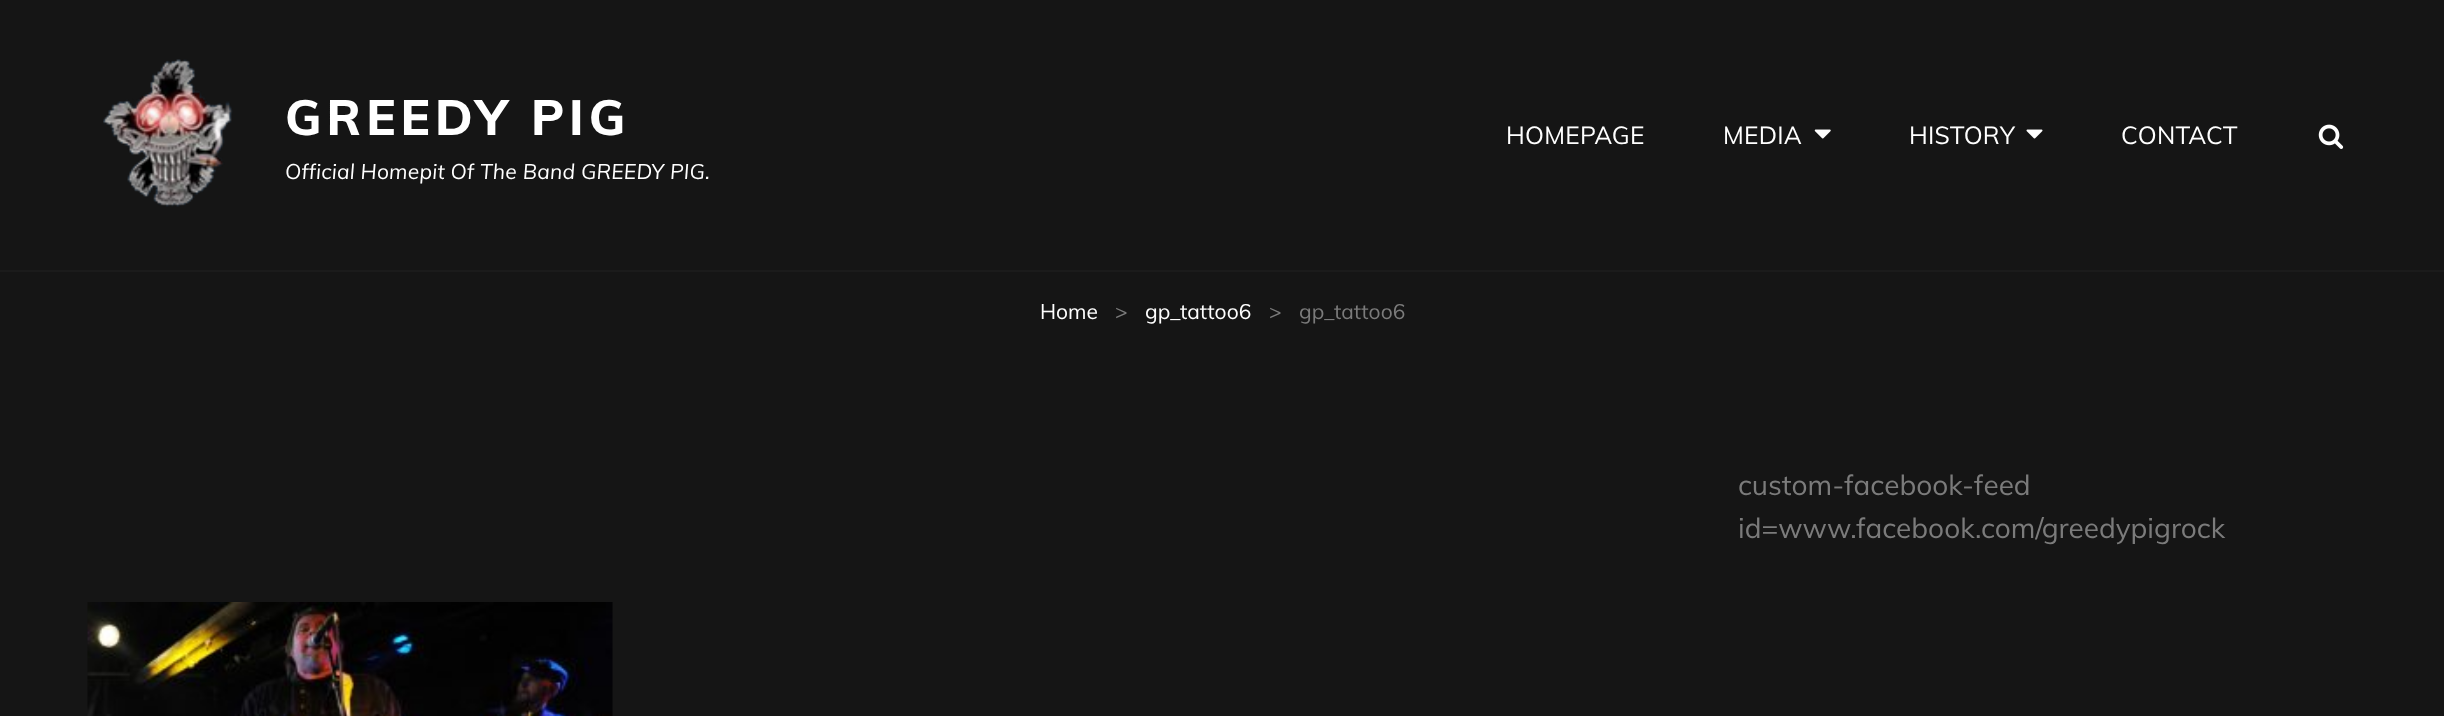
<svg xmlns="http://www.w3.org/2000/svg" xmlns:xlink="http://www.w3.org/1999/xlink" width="2444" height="716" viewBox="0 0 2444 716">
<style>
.cls-1{font:800 49px Muli;letter-spacing:5px;fill:#ffffff}
.cls-2{font:italic 21px Muli;letter-spacing:0.2px;fill:#ffffff}
.cls-3{font:24.5px Muli;letter-spacing:0.25px;fill:#ffffff}
.cls-4{font:21px Muli;fill:#ffffff}
.cls-5{font:21px Muli;fill:#7b7b7b}
.cls-6{font:28px Muli;fill:#7b7b7b}
</style>
<rect width="100%" height="100%" fill="#151515"/>
<rect fill="#1b1b1b" x="0" y="270" width="2444" height="2"/>
<image xlink:href="image0.png" x="103" y="59" width="130" height="148"/>
<image xlink:href="image1.png" x="1814" y="129" width="17" height="10"/>
<image xlink:href="image2.png" x="2026" y="129" width="17" height="10"/>
<image xlink:href="image3.png" x="2318" y="124" width="26" height="25"/>
<image xlink:href="image4.png" x="87" y="602" width="526" height="114"/>
<text class="cls-1" x="285" y="135">GREEDY PIG</text>
<text class="cls-2" x="285" y="179">Official Homepit Of The Band GREEDY PIG.</text>
<text class="cls-3" x="1506" y="144">HOMEPAGE</text>
<text class="cls-3" x="1723" y="144">MEDIA</text>
<text class="cls-3" x="1909" y="144">HISTORY</text>
<text class="cls-3" x="2121" y="144">CONTACT</text>
<text class="cls-4" x="1040" y="319">Home</text>
<text class="cls-5" x="1115" y="319">&gt;</text>
<text class="cls-4" x="1145" y="319">gp_tattoo6</text>
<text class="cls-5" x="1269" y="319">&gt;</text>
<text class="cls-5" x="1299" y="319">gp_tattoo6</text>
<text class="cls-6"><tspan x="1738" y="495">custom-facebook-feed</tspan><tspan x="1738" y="538">id=www.facebook.com/greedypigrock</tspan></text>
</svg>
